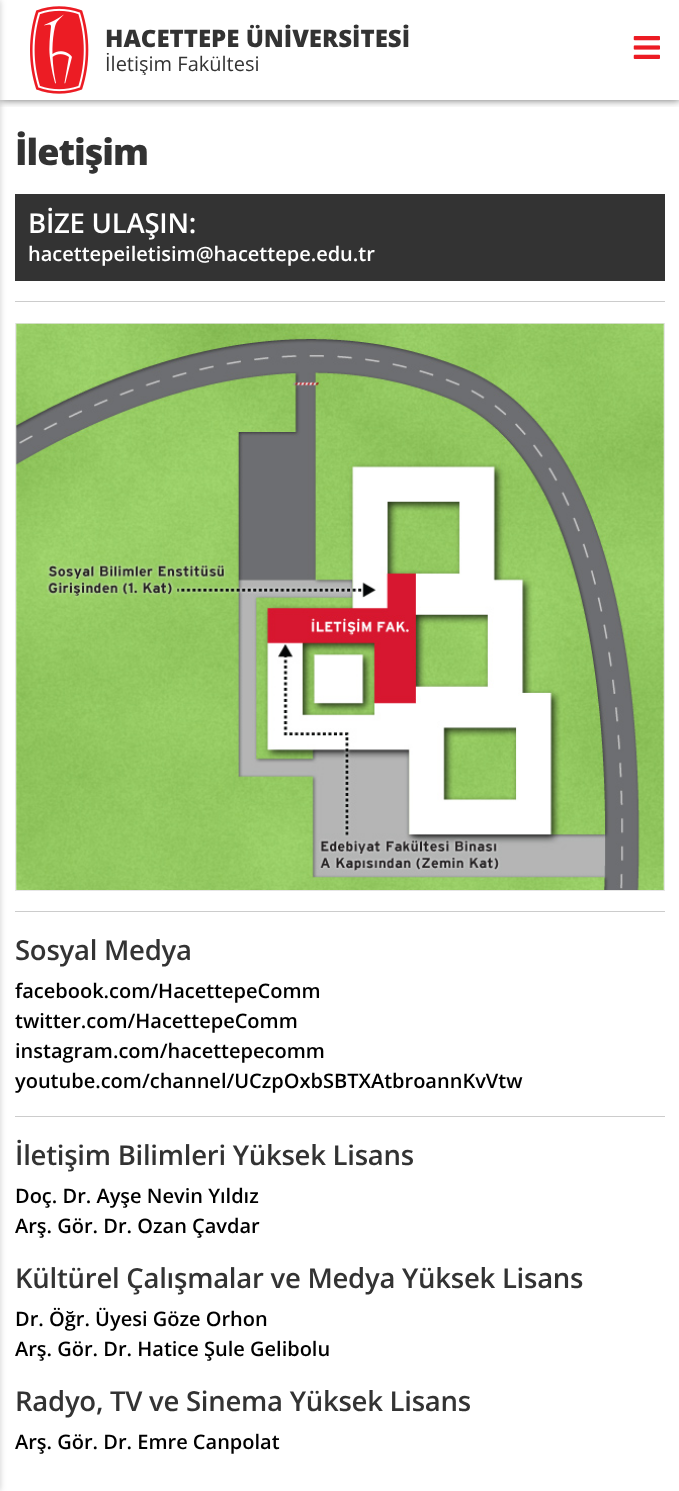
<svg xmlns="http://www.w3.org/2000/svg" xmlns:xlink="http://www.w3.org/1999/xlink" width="679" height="1491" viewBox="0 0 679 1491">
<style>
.cls-1{font:800 24px Open Sans;fill:#333333}
.cls-2{font:20px Open Sans;fill:#333333}
.cls-3{font:800 36px Open Sans;letter-spacing:-1px;fill:#333333}
.cls-4{font:600 27.5px Open Sans;letter-spacing:-0.25px;fill:#ffffff}
.cls-5{font:600 20px Open Sans;fill:#ffffff}
.cls-6{font:600 27.5px Open Sans;letter-spacing:-0.25px;fill:#333333}
.cls-7{font:600 20px Open Sans;fill:#000000}
</style>
<defs>
<clipPath id="clip1"><rect x="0" y="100" width="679" height="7"/></clipPath>
<clipPath id="clip2"><rect x="105" y="53" width="508" height="22"/></clipPath>
</defs>
<rect width="100%" height="100%" fill="#ffffff"/>
<rect fill="#000000" fill-opacity="0.2" filter="blur(3px)" x="-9" y="0" width="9" height="1491"/>
<g clip-path="url(#clip1)">
<rect fill="#000000" fill-opacity="0.6" filter="blur(4px)" x="0" y="0" width="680" height="100"/>
</g>
<image xlink:href="image0.png" x="30" y="6" width="59" height="88"/>
<image xlink:href="image1.png" x="633" y="36" width="27" height="23"/>
<rect fill="#333333" x="15" y="194" width="650" height="87"/>
<rect fill="#cccccc" x="15" y="301" width="650" height="1"/>
<rect fill="none" stroke="#e6e6e6" x="15.5" y="323.5" width="649" height="567"/>
<image xlink:href="image2.png" x="16" y="323" width="648" height="567"/>
<rect fill="#cccccc" x="15" y="911" width="650" height="1"/>
<rect fill="#cccccc" x="15" y="1116" width="650" height="1"/>
<text class="cls-1" x="105" y="47">HACETTEPE ÜNİVERSİTESİ</text>
<g clip-path="url(#clip2)">
<text class="cls-2" x="105" y="71">İletişim Fakültesi</text>
</g>
<text class="cls-3" x="15" y="165">İletişim</text>
<text class="cls-4" x="28" y="233">BİZE ULAŞIN:</text>
<text class="cls-5" x="28" y="261">hacettepeiletisim@hacettepe.edu.tr</text>
<text class="cls-6" x="15" y="960">Sosyal Medya</text>
<text class="cls-7"><tspan x="15" y="998">facebook.com/HacettepeComm</tspan><tspan x="15" y="1028">twitter.com/HacettepeComm</tspan><tspan x="15" y="1058">instagram.com/hacettepecomm</tspan><tspan x="15" y="1088">youtube.com/channel/UCzpOxbSBTXAtbroannKvVtw</tspan></text>
<text class="cls-6" x="15" y="1165">İletişim Bilimleri Yüksek Lisans</text>
<text class="cls-7"><tspan x="15" y="1203">Doç. Dr. Ayşe Nevin Yıldız</tspan><tspan x="15" y="1233">Arş. Gör. Dr. Ozan Çavdar</tspan></text>
<text class="cls-6" x="15" y="1288">Kültürel Çalışmalar ve Medya Yüksek Lisans</text>
<text class="cls-7"><tspan x="15" y="1326">Dr. Öğr. Üyesi Göze Orhon</tspan><tspan x="15" y="1356">Arş. Gör. Dr. Hatice Şule Gelibolu</tspan></text>
<text class="cls-6" x="15" y="1411">Radyo, TV ve Sinema Yüksek Lisans</text>
<text class="cls-7" x="15" y="1449">Arş. Gör. Dr. Emre Canpolat</text>
</svg>
